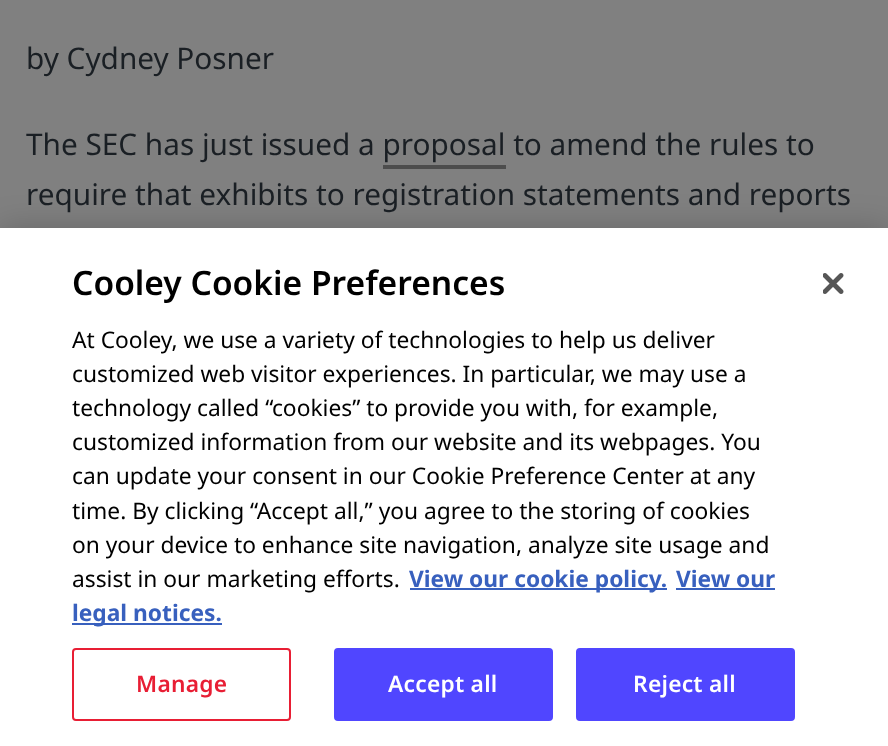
<svg xmlns="http://www.w3.org/2000/svg" xmlns:xlink="http://www.w3.org/1999/xlink" width="888" height="746" viewBox="0 0 888 746">
<style>
.cls-1{font:29.75px Noto Sans;fill:#1a1f24}
.cls-2{font:600 33.6px Noto Sans;fill:#000000}
.cls-3{font:22.75px Noto Sans;fill:#000000}
.cls-4{font:bold 22.75px Noto Sans;fill:#3860be}
.cls-5{font:600 22.75px Noto Sans;letter-spacing:0.25px;fill:#e81e34}
.cls-6{font:600 22.75px Noto Sans;letter-spacing:0.25px;fill:#ffffff}
</style>
<rect width="100%" height="100%" fill="#808080"/>
<rect fill="#4d4d4d" x="383" y="165" width="123" height="4"/>
<rect fill="#000000" fill-opacity="0.2" filter="blur(16px)" x="0" y="228" width="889" height="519"/>
<rect fill="#ffffff" x="0" y="228" width="888" height="518"/>
<rect fill="#3860be" x="410" y="588" width="257" height="2"/>
<rect fill="#3860be" x="676" y="588" width="99" height="2"/>
<rect fill="#3860be" x="72" y="623" width="150" height="2"/>
<rect fill="none" stroke="#e81e34" stroke-width="2" x="73" y="649" width="217" height="71" rx="3"/>
<rect fill="#5046ff" stroke="#5046ff" stroke-width="2" x="335" y="649" width="217" height="71" rx="3"/>
<rect fill="#5046ff" stroke="#5046ff" stroke-width="2" x="577" y="649" width="217" height="71" rx="3"/>
<image xlink:href="image0.png" x="823" y="273" width="21" height="21"/>
<text class="cls-1" x="26" y="69">by Cydney Posner</text>
<text class="cls-1"><tspan x="26" y="155">The SEC has just issued a proposal to amend the rules to</tspan><tspan x="26" y="205">require that exhibits to registration statements and reports</tspan></text>
<text class="cls-2" x="72" y="295">Cooley Cookie Preferences</text>
<text class="cls-3"><tspan x="72" y="348">At Cooley, we use a variety of technologies to help us deliver</tspan><tspan x="72" y="382">customized web visitor experiences. In particular, we may use a</tspan><tspan x="72" y="416">technology called “cookies” to provide you with, for example,</tspan><tspan x="72" y="450">customized information from our website and its webpages. You</tspan><tspan x="72" y="484">can update your consent in our Cookie Preference Center at any</tspan><tspan x="72" y="519">time. By clicking “Accept all,” you agree to the storing of cookies</tspan><tspan x="72" y="553">on your device to enhance site navigation, analyze site usage and</tspan><tspan x="72" y="587">assist in our marketing efforts.</tspan></text>
<text class="cls-4" x="409" y="587">View our cookie policy.</text>
<text class="cls-4" x="676" y="587">View our</text>
<text class="cls-4" x="72" y="621">legal notices.</text>
<text class="cls-5" x="136" y="692">Manage</text>
<text class="cls-6" x="388" y="692">Accept all</text>
<text class="cls-6" x="633" y="692">Reject all</text>
</svg>
